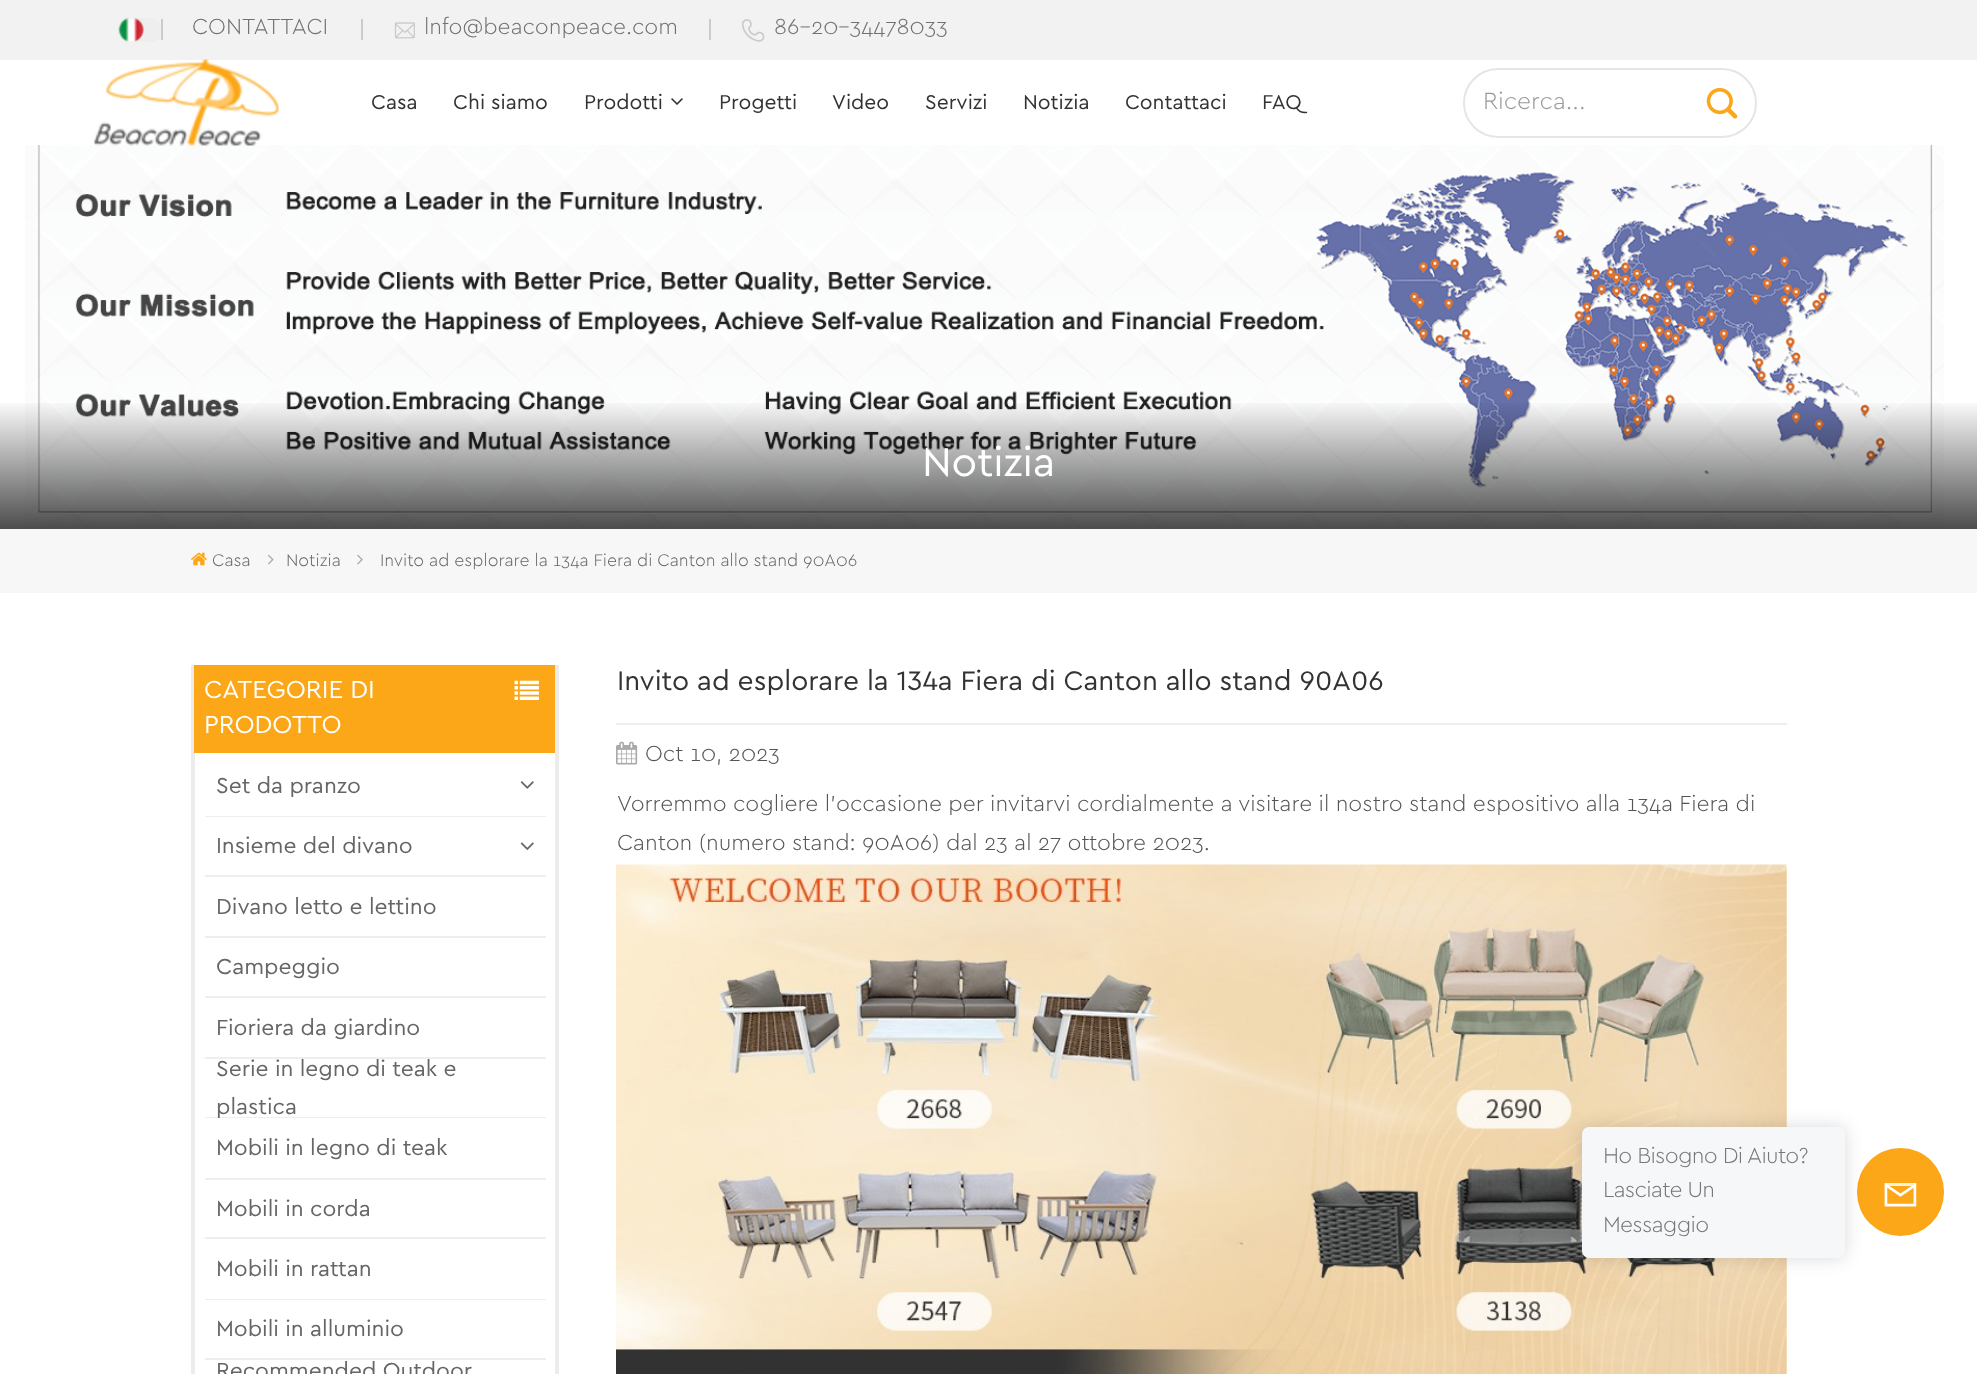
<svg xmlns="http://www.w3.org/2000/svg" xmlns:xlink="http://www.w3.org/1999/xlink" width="1977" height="1374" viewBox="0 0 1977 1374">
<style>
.cls-1{font:300 22.75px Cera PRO;fill:#707270}
.cls-2{font:21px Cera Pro;fill:#333333}
.cls-3{font:300 24.5px Cera PRO;fill:#999999}
.cls-4{font:42px Cera Pro;fill:#ffffff}
.cls-5{font:300 17.6px Cera PRO;fill:#666666}
.cls-6{font:25.75px Cera Pro;fill:#ffffff}
.cls-7{font:22.75px Cera Pro;fill:#666666}
.cls-8{font:28.15px Cera Pro;fill:#333333}
.cls-9{font:300 22.75px Cera PRO;fill:#555555}
.cls-10{font:300 22.75px Cera PRO;letter-spacing:-0.7px;fill:#777777}
</style>
<defs>
<linearGradient id="g1" gradientUnits="userSpaceOnUse" x1="989" y1="399" x2="989" y2="529"><stop offset="0" stop-color="#000000" stop-opacity="0"/><stop offset="1" stop-color="#000000" stop-opacity="0.7"/></linearGradient>
</defs>
<rect width="100%" height="100%" fill="#ffffff"/>
<rect fill="#f2f2f2" x="0" y="0" width="1977" height="60"/>
<rect fill="#eeeeee" x="119" y="18" width="42" height="24" rx="9"/>
<image xlink:href="image0.png" x="118" y="17" width="26" height="25"/>
<rect fill="#cbcbcb" x="161" y="19" width="2" height="21"/>
<rect fill="#cbcbcb" x="361" y="19" width="2" height="21"/>
<image xlink:href="image1.png" x="394" y="22" width="21" height="17"/>
<rect fill="#cbcbcb" x="709" y="19" width="2" height="21"/>
<image xlink:href="image2.png" x="741" y="19" width="24" height="23"/>
<image xlink:href="image6.png" x="25" y="145" width="1919" height="384"/>
<image xlink:href="image3.png" x="93" y="59" width="186" height="87"/>
<image xlink:href="image4.png" x="671" y="98" width="12" height="7"/>
<rect fill="none" stroke="#e5e5e5" stroke-width="2" x="1464" y="69" width="292" height="68" rx="34"/>
<image xlink:href="image5.png" x="1706" y="87" width="32" height="32"/>
<rect fill="url(#g1)" x="0" y="403" width="1977" height="126"/>
<rect fill="#f7f7f7" x="0" y="529" width="1977" height="64"/>
<image xlink:href="image7.png" x="191" y="552" width="16" height="14"/>
<image xlink:href="image8.png" x="268" y="554" width="6" height="11"/>
<image xlink:href="image9.png" x="357" y="554" width="6" height="11"/>
<rect fill="#ececec" x="555" y="665" width="4" height="709"/>
<rect fill="#ececec" x="191" y="665" width="4" height="709"/>
<rect fill="#fba718" x="194" y="665" width="361" height="88"/>
<image xlink:href="image10.png" x="514" y="680" width="25" height="20"/>
<rect fill="#eeeeee" x="205" y="816" width="341" height="1"/>
<image xlink:href="image11.png" x="520" y="781" width="14" height="8"/>
<rect fill="#eeeeee" x="205" y="875" width="341" height="2"/>
<image xlink:href="image12.png" x="520" y="842" width="14" height="8"/>
<rect fill="#eeeeee" x="205" y="936" width="341" height="2"/>
<rect fill="#eeeeee" x="205" y="996" width="341" height="2"/>
<rect fill="#eeeeee" x="205" y="1057" width="341" height="2"/>
<rect fill="#eeeeee" x="205" y="1117" width="341" height="1"/>
<rect fill="#eeeeee" x="205" y="1178" width="341" height="2"/>
<rect fill="#eeeeee" x="205" y="1237" width="341" height="2"/>
<rect fill="#eeeeee" x="205" y="1299" width="341" height="1"/>
<rect fill="#eeeeee" x="205" y="1358" width="341" height="2"/>
<rect fill="#eeeeee" x="616" y="723" width="1171" height="2"/>
<image xlink:href="image13.png" x="616" y="741" width="22" height="24"/>
<image xlink:href="image14.png" x="616" y="864" width="1171" height="510"/>
<rect fill="#fba718" x="1857" y="1148" width="87" height="88" rx="43.5"/>
<rect fill="#000000" fill-opacity="0.15" filter="blur(9px)" x="1582" y="1127" width="263" height="131" rx="7"/>
<rect fill="#f5f7f9" x="1582" y="1127" width="263" height="131" rx="7"/>
<image xlink:href="image15.png" x="1884" y="1183" width="33" height="24"/>
<text class="cls-1" x="192" y="34">CONTATTACI</text>
<text class="cls-1" x="424" y="34">lnfo@beaconpeace.com</text>
<text class="cls-1" x="774" y="34">86-20-34478033</text>
<text class="cls-2" x="371" y="109">Casa</text>
<text class="cls-2" x="453" y="109">Chi siamo</text>
<text class="cls-2" x="584" y="109">Prodotti</text>
<text class="cls-2" x="719" y="109">Progetti</text>
<text class="cls-2" x="832" y="109">Video</text>
<text class="cls-2" x="925" y="109">Servizi</text>
<text class="cls-2" x="1023" y="109">Notizia</text>
<text class="cls-2" x="1125" y="109">Contattaci</text>
<text class="cls-2" x="1262" y="109">FAQ</text>
<text class="cls-3" x="1483" y="109">Ricerca...</text>
<text class="cls-4" x="922" y="476">Notizia</text>
<text class="cls-5" x="212" y="566">Casa</text>
<text class="cls-5" x="286" y="566">Notizia</text>
<text class="cls-5" x="380" y="566">Invito ad esplorare la 134a Fiera di Canton allo stand 90A06</text>
<text class="cls-6"><tspan x="204" y="698">CATEGORIE DI</tspan><tspan x="204" y="733">PRODOTTO</tspan></text>
<text class="cls-7" x="216" y="793">Set da pranzo</text>
<text class="cls-7" x="216" y="853">Insieme del divano</text>
<text class="cls-7" x="216" y="914">Divano letto e lettino</text>
<text class="cls-7" x="216" y="974">Campeggio</text>
<text class="cls-7"><tspan x="216" y="1035">Fioriera da giardino</tspan><tspan x="216" y="1076">Serie in legno di teak e</tspan><tspan x="216" y="1114">plastica</tspan></text>
<rect fill="#ffffff" x="218" y="1118" width="2" height="1"/>
<text class="cls-7" x="216" y="1155">Mobili in legno di teak</text>
<text class="cls-7" x="216" y="1216">Mobili in corda</text>
<text class="cls-7" x="216" y="1276">Mobili in rattan</text>
<text class="cls-7"><tspan x="216" y="1336">Mobili in alluminio</tspan><tspan x="216" y="1378">Recommended Outdoor</tspan></text>
<text class="cls-8" x="617" y="690">Invito ad esplorare la 134a Fiera di Canton allo stand 90A06</text>
<text class="cls-9" x="645" y="761">Oct 10, 2023</text>
<text class="cls-9"><tspan x="617" y="811">Vorremmo cogliere l'occasione per invitarvi cordialmente a visitare il nostro stand espositivo alla 134a Fiera di</tspan><tspan x="617" y="850">Canton (numero stand: 90A06) dal 23 al 27 ottobre 2023.</tspan></text>
<text class="cls-10"><tspan x="1603" y="1163">Ho Bisogno Di Aiuto?</tspan><tspan x="1603" y="1197">Lasciate Un</tspan><tspan x="1603" y="1232">Messaggio</tspan></text>
</svg>
